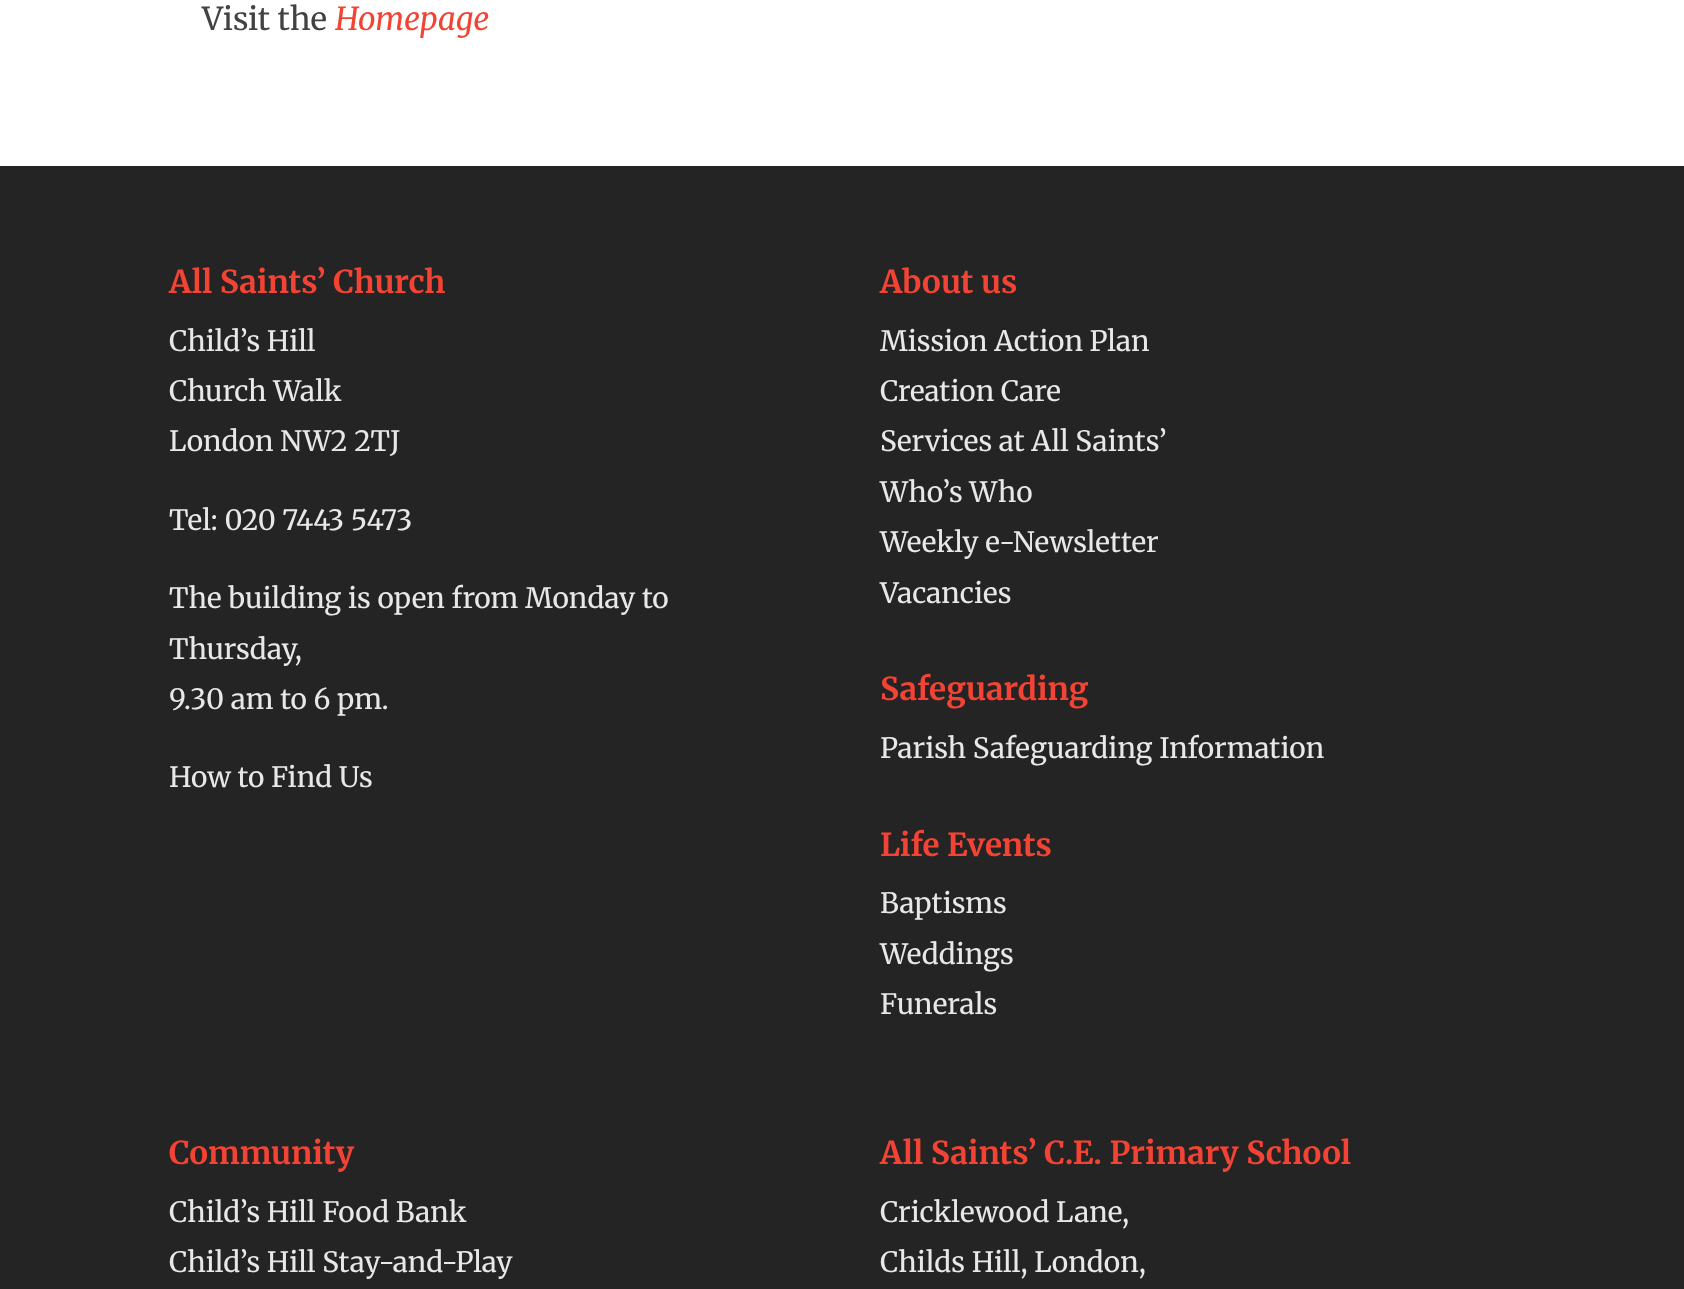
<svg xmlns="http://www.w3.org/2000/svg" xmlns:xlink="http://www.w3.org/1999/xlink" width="1684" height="1289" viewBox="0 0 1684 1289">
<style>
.cls-1{font:31.5px Merriweather;fill:#424242}
.cls-2{font:italic 31.5px Merriweather;fill:#f34334}
.cls-3{font:bold 31.5px Merriweather;fill:#f34334}
.cls-4{font:28px Merriweather;fill:#e8e8e8}
</style>
<rect width="100%" height="100%" fill="#ffffff"/>
<rect fill="#242424" x="0" y="166" width="1684" height="1123"/>
<text class="cls-1" x="202" y="30">Visit the</text>
<text class="cls-2" x="335" y="30">Homepage</text>
<text class="cls-3" x="169" y="293">All Saints’ Church</text>
<text class="cls-4"><tspan x="169" y="351">Child’s Hill</tspan><tspan x="169" y="401">Church Walk</tspan><tspan x="169" y="451">London NW2 2TJ</tspan></text>
<text class="cls-4" x="169" y="530">Tel: 020 7443 5473</text>
<text class="cls-4"><tspan x="169" y="608">The building is open from Monday to</tspan><tspan x="169" y="659">Thursday,</tspan><tspan x="169" y="709">9.30 am to 6 pm.</tspan></text>
<text class="cls-4" x="169" y="787">How to Find Us</text>
<text class="cls-3" x="880" y="293">About us</text>
<text class="cls-4"><tspan x="880" y="351">Mission Action Plan</tspan><tspan x="880" y="401">Creation Care</tspan><tspan x="880" y="451">Services at All Saints’</tspan><tspan x="880" y="502">Who’s Who</tspan><tspan x="880" y="552">Weekly e-Newsletter</tspan><tspan x="880" y="603">Vacancies</tspan></text>
<text class="cls-3" x="880" y="700">Safeguarding</text>
<text class="cls-4" x="880" y="758">Parish Safeguarding Information</text>
<text class="cls-3" x="880" y="856">Life Events</text>
<text class="cls-4"><tspan x="880" y="913">Baptisms</tspan><tspan x="880" y="964">Weddings</tspan><tspan x="880" y="1014">Funerals</tspan></text>
<text class="cls-3" x="169" y="1164">Community</text>
<text class="cls-4"><tspan x="169" y="1222">Child’s Hill Food Bank</tspan><tspan x="169" y="1272">Child’s Hill Stay-and-Play</tspan></text>
<text class="cls-3" x="880" y="1164">All Saints’ C.E. Primary School</text>
<text class="cls-4"><tspan x="880" y="1222">Cricklewood Lane,</tspan><tspan x="880" y="1272">Childs Hill, London,</tspan></text>
</svg>
